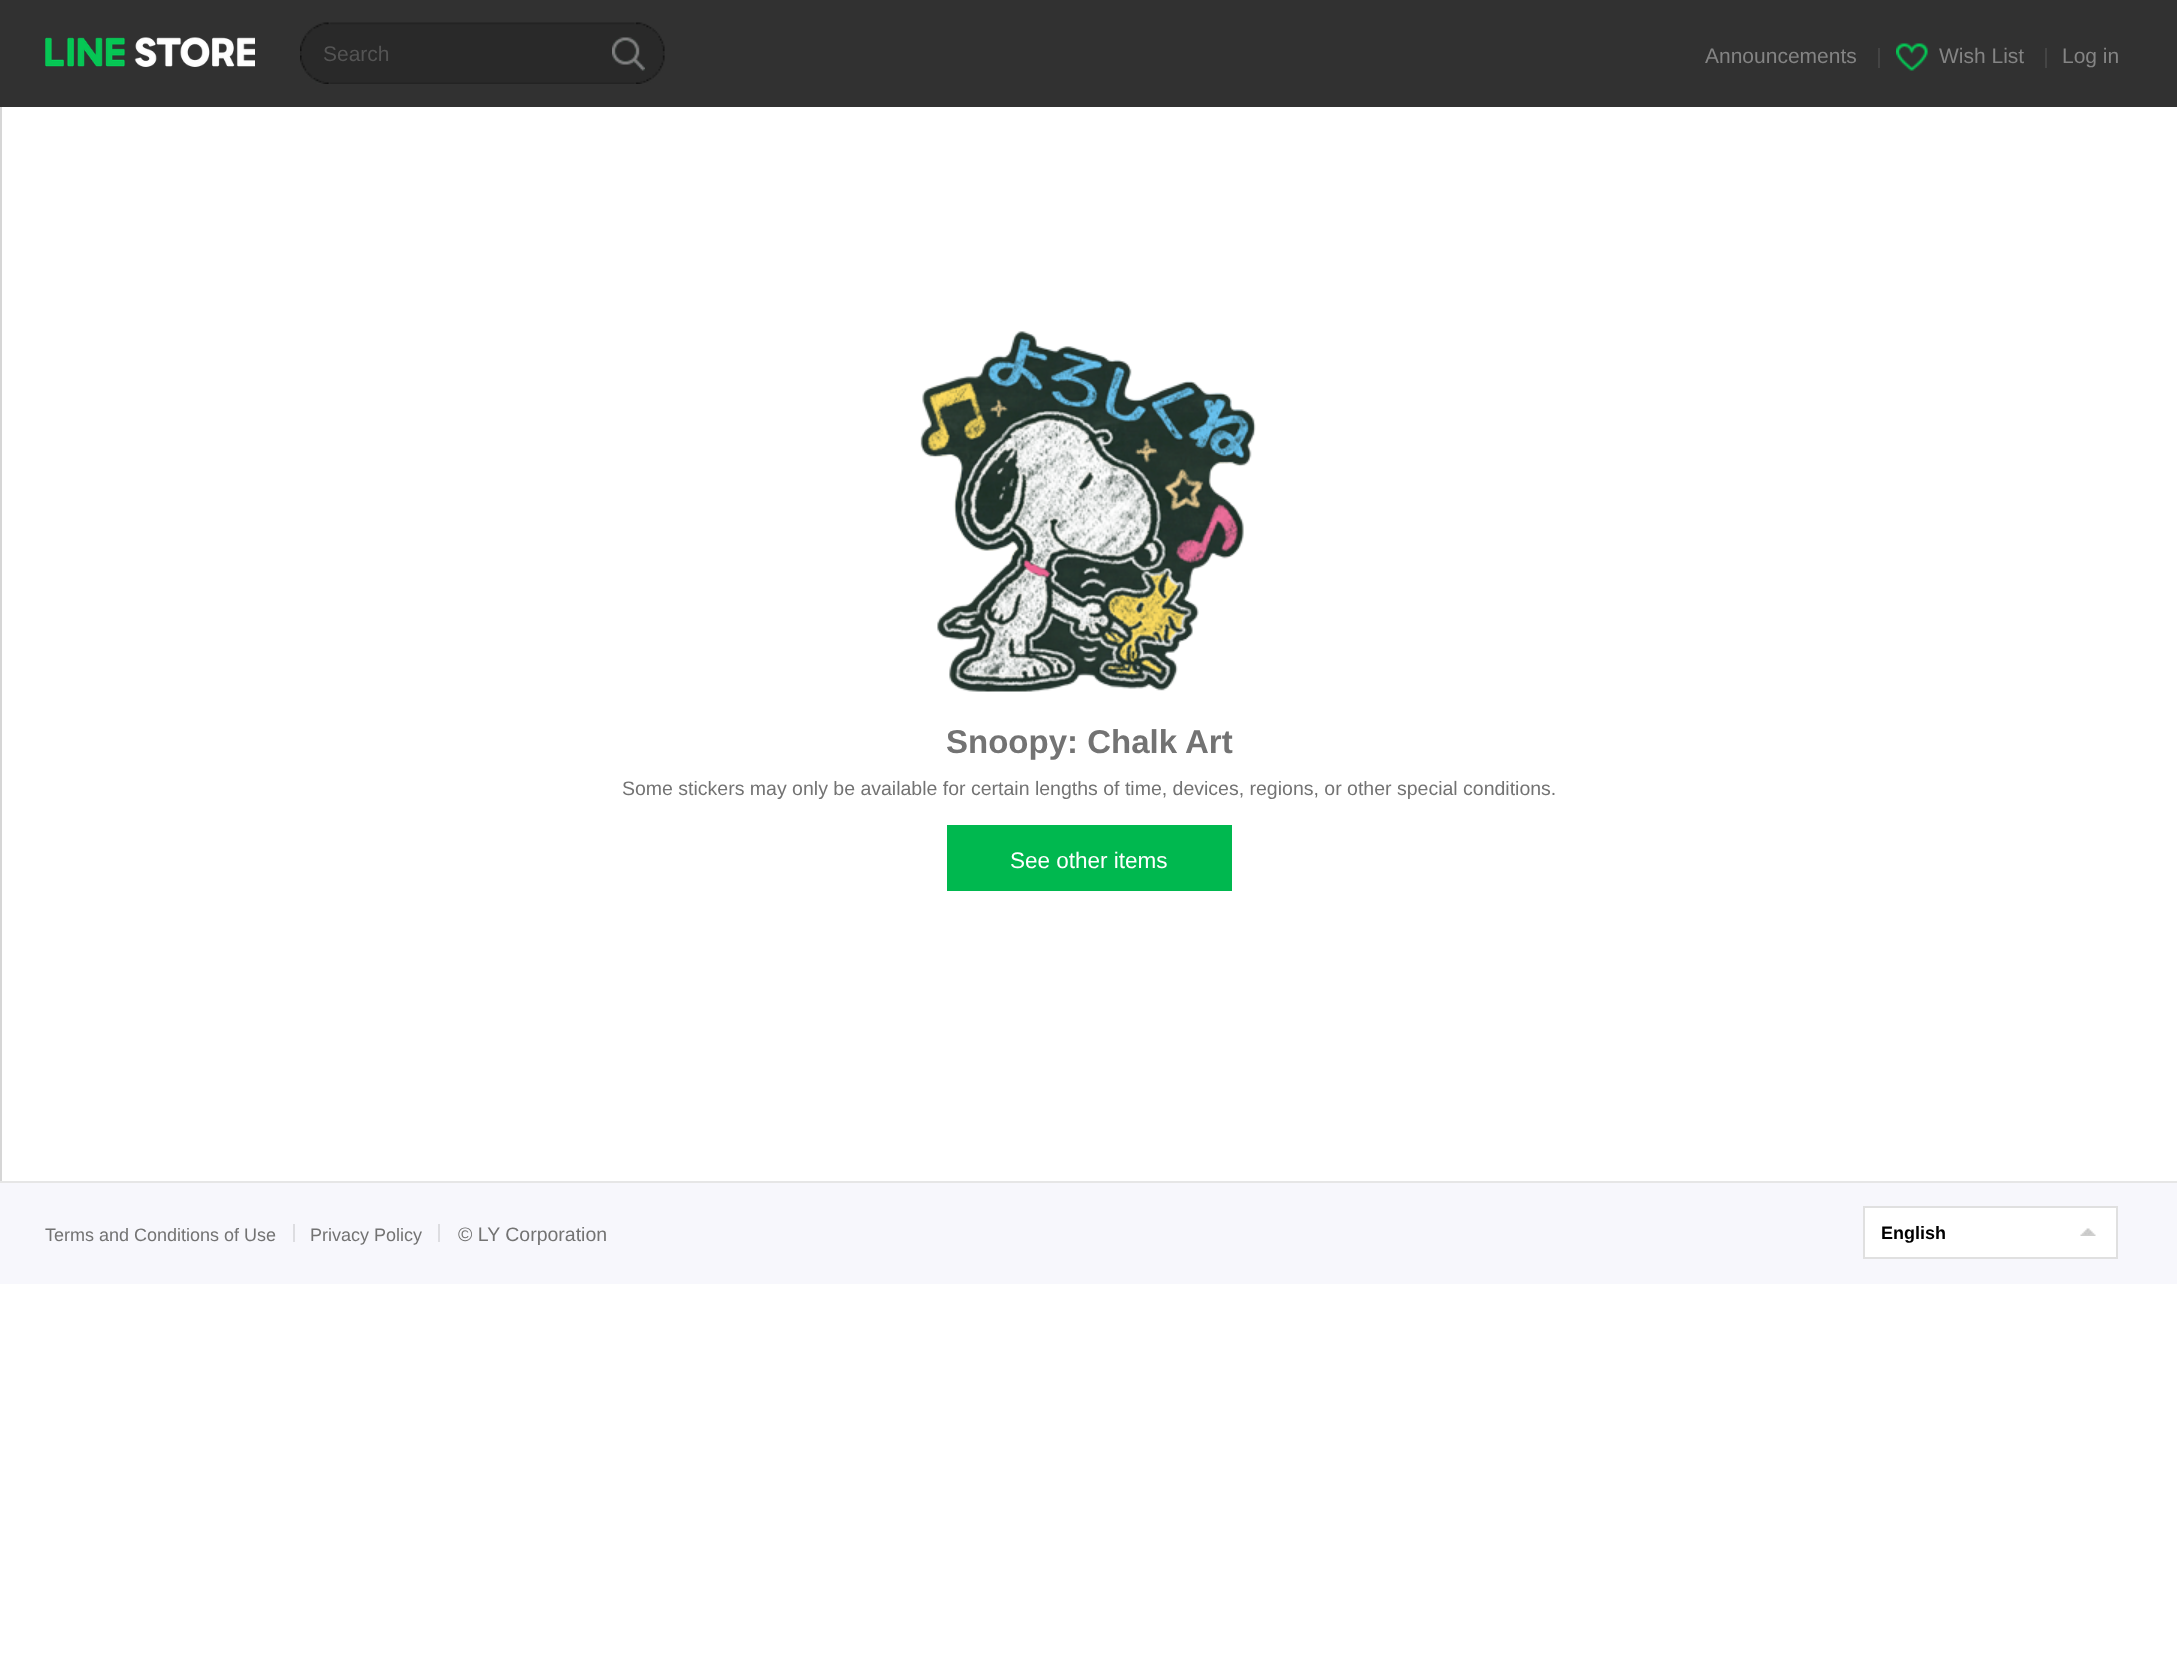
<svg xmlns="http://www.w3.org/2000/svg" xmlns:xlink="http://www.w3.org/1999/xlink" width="2177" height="1676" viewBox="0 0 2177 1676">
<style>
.cls-1{font:21px Liberation Sans;fill:#545454}
.cls-2{font:21px Liberation Sans;fill:#848484}
.cls-3{font:bold 33px Liberation Sans;fill:#737373}
.cls-4{font:19.5px Liberation Sans;fill:#737373}
.cls-5{font:22.5px Liberation Sans;fill:#ffffff}
.cls-6{font:18px Liberation Sans;fill:#737373}
.cls-7{font:bold 18px Liberation Sans;fill:#000000}
</style>
<rect width="100%" height="100%" fill="#ffffff"/>
<rect fill="#313131" x="0" y="0" width="2177" height="107"/>
<image xlink:href="image0.png" x="45" y="37" width="210" height="30"/>
<image xlink:href="image1.png" x="300" y="22" width="365" height="62"/>
<image xlink:href="image2.png" x="612" y="37" width="33" height="34"/>
<rect fill="#444444" x="1878" y="48" width="2" height="20"/>
<image xlink:href="image3.png" x="1896" y="43" width="32" height="28"/>
<rect fill="#444444" x="2045" y="48" width="2" height="20"/>
<rect fill="#d6d6d6" x="0" y="107" width="2" height="1074"/>
<image xlink:href="image4.png" x="920" y="331" width="336" height="361"/>
<rect fill="#00b84f" x="947" y="825" width="285" height="66"/>
<rect fill="#f7f7fc" x="0" y="1183" width="2177" height="101"/>
<rect fill="#e6e6e6" x="0" y="1181" width="2177" height="2"/>
<rect fill="#dddde1" x="293" y="1224" width="2" height="18"/>
<rect fill="#dddde1" x="438" y="1224" width="2" height="18"/>
<rect fill="#ffffff" stroke="#e0e0e0" stroke-width="2" x="1864" y="1207" width="253" height="51"/>
<image xlink:href="image5.png" x="2080" y="1228" width="16" height="8"/>
<text class="cls-1" x="323" y="61">Search</text>
<text class="cls-2" x="1705" y="63">Announcements</text>
<text class="cls-2" x="1939" y="63">Wish List</text>
<text class="cls-2" x="2062" y="63">Log in</text>
<text class="cls-3" x="946" y="753">Snoopy: Chalk Art</text>
<text class="cls-4" x="622" y="795">Some stickers may only be available for certain lengths of time, devices, regions, or other special conditions.</text>
<text class="cls-5" x="1010" y="868">See other items</text>
<text class="cls-6" x="45" y="1241">Terms and Conditions of Use</text>
<text class="cls-6" x="310" y="1241">Privacy Policy</text>
<text class="cls-4" x="458" y="1241">© LY Corporation</text>
<text class="cls-7" x="1881" y="1239">English</text>
</svg>
